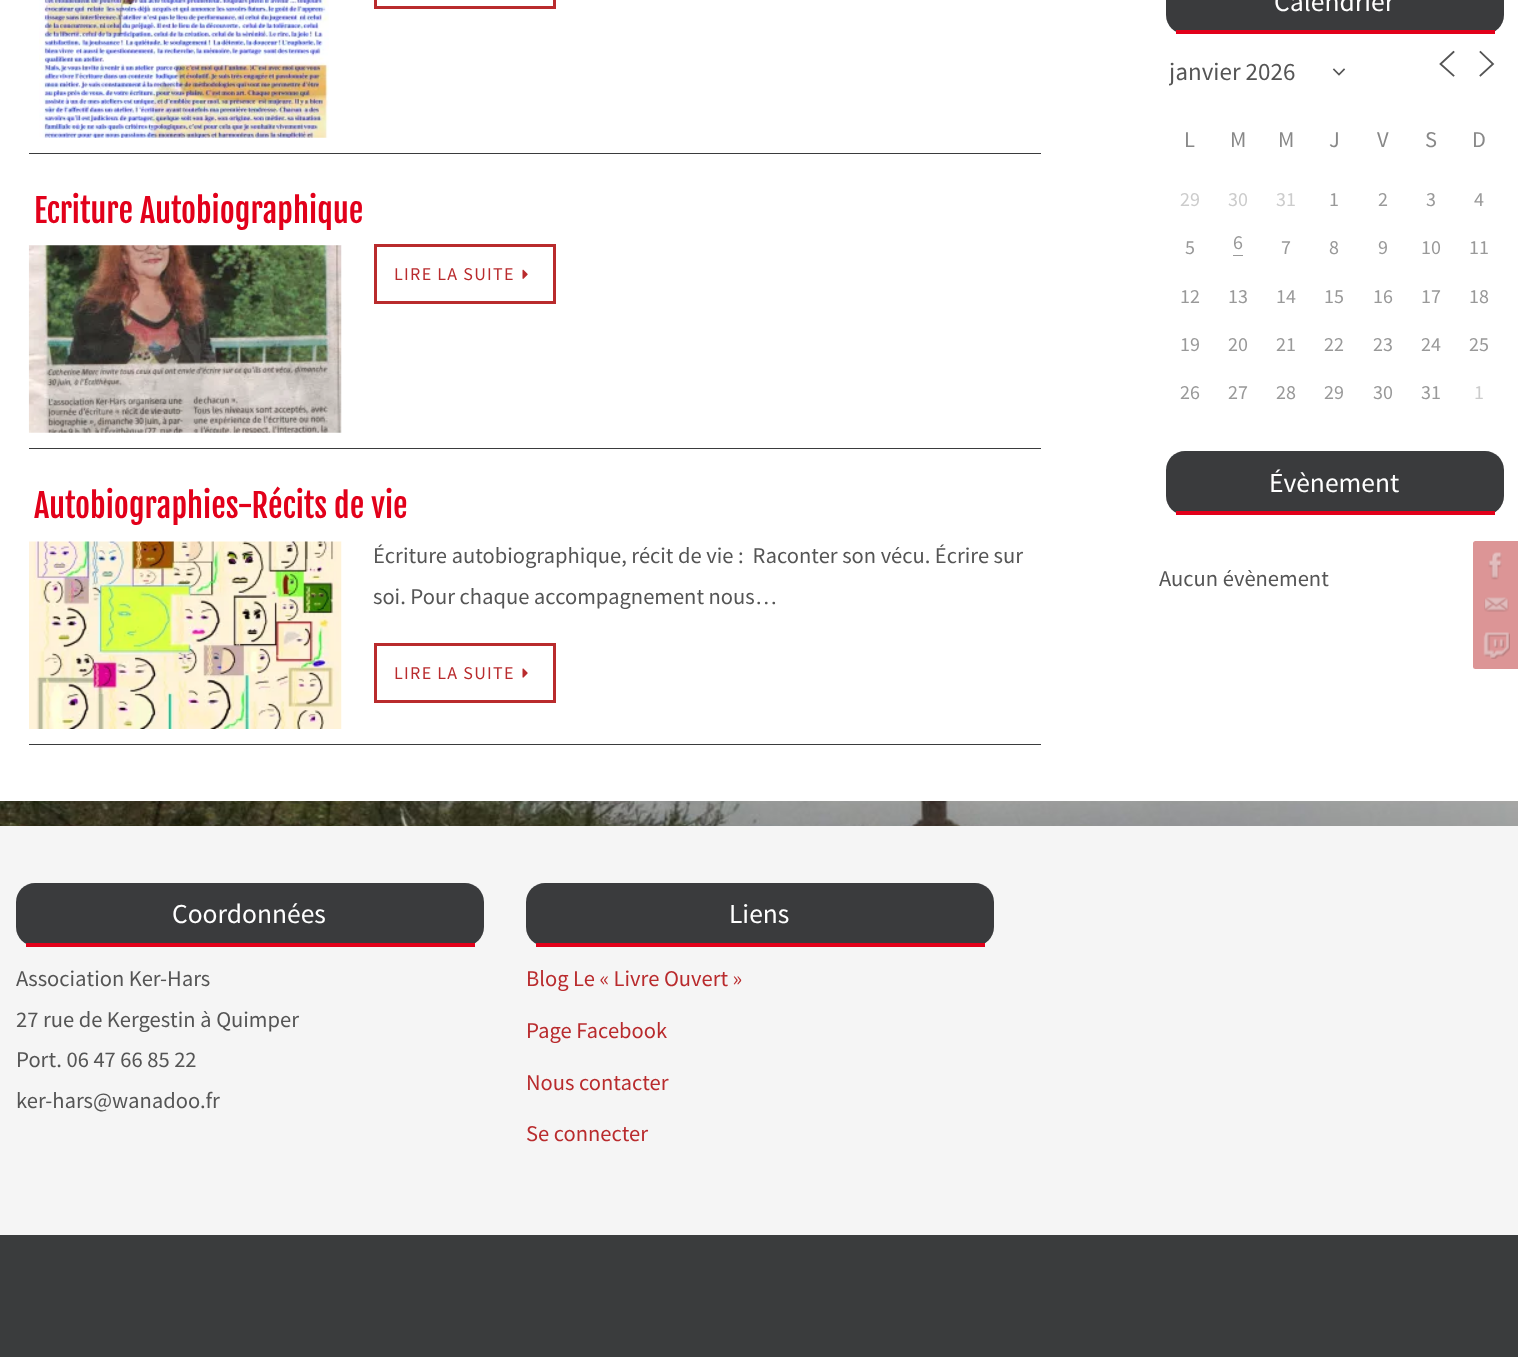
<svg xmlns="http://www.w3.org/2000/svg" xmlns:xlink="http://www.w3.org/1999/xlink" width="1518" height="1357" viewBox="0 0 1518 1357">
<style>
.cls-1{font:32.5px Fjalla One;fill:#e2001a}
.cls-2{font:18px Source Sans Pro;letter-spacing:1.25px;fill:#b92b2d}
.cls-3{font:22.5px Source Sans Pro;fill:#555555}
.cls-4{font:22.5px Liberation Serif;fill:#555555}
.cls-5{font:27.5px Source Sans Pro;fill:#ffffff}
.cls-6{font:25px Source Sans Pro;fill:#555555}
.cls-7{font:22.5px Source Sans Pro;fill:#888888}
.cls-8{font:20px Source Sans Pro;fill:#cccccc}
.cls-9{font:20px Source Sans Pro;fill:#999999}
.cls-10{font:22.5px Source Sans Pro;fill:#b92b2d}
</style>
<defs>
<clipPath id="clip1"><rect x="1169" y="55" width="176" height="31"/></clipPath>
</defs>
<rect width="100%" height="100%" fill="#ffffff"/>
<image xlink:href="image0.png" x="0" y="801" width="1518" height="25"/>
<rect fill="#3a3b3d" x="29" y="153" width="1012" height="1"/>
<image xlink:href="image1.png" x="39" y="0" width="290" height="138"/>
<rect fill="none" stroke="#b92b2d" stroke-width="3" x="375.5" y="-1.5" width="179" height="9"/>
<rect fill="#3a3b3d" x="29" y="448" width="1012" height="1"/>
<image xlink:href="image2.png" x="28" y="245" width="314" height="188"/>
<rect fill="none" stroke="#b92b2d" stroke-width="3" x="375.5" y="245.5" width="179" height="57"/>
<image xlink:href="image3.png" x="522" y="269" width="6" height="10"/>
<rect fill="#3a3b3d" x="29" y="744" width="1012" height="1"/>
<image xlink:href="image4.png" x="29" y="541" width="313" height="188"/>
<rect fill="none" stroke="#b92b2d" stroke-width="3" x="375.5" y="644.5" width="179" height="57"/>
<image xlink:href="image5.png" x="522" y="668" width="6" height="10"/>
<rect fill="#3a3b3d" x="1166" y="-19" width="338" height="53" rx="19"/>
<rect fill="#e2001a" x="1176" y="30" width="319" height="4"/>
<path fill="none" stroke="#555555" stroke-width="1.7" stroke-linecap="square" d="M1334 69.5L1339 74.5L1344 69.5"/>
<path fill="none" stroke="#555555" stroke-width="1.8" stroke-linecap="square" d="M1453.5 75.5L1440.5 64L1453.5 52M1480.5 75.5L1493 64L1480.5 52"/>
<rect fill="#999999" x="1233" y="255" width="10" height="1"/>
<rect fill="#3a3b3d" x="1166" y="451" width="338" height="64" rx="19"/>
<rect fill="#e2001a" x="1176" y="511" width="319" height="4"/>
<rect fill="#dc9596" x="1473" y="541" width="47" height="48" rx="2.5"/>
<image xlink:href="image6.png" x="1488" y="552" width="14" height="28"/>
<rect fill="#dc9596" x="1473" y="581" width="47" height="48" rx="2.5"/>
<image xlink:href="image7.png" x="1484" y="597" width="25" height="15"/>
<rect fill="#dc9596" x="1473" y="621" width="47" height="48" rx="2.5"/>
<image xlink:href="image8.png" x="1483" y="632" width="27" height="27"/>
<rect fill="#f5f5f5" x="0" y="826" width="1518" height="409"/>
<rect fill="#3a3b3d" x="16" y="883" width="468" height="63" rx="19"/>
<rect fill="#e2001a" x="26" y="943" width="449" height="4"/>
<rect fill="#3a3b3d" x="526" y="883" width="468" height="63" rx="19"/>
<rect fill="#e2001a" x="536" y="943" width="449" height="4"/>
<rect fill="#3a3c3d" x="0" y="1235" width="1518" height="122"/>
<text class="cls-1" x="34" y="223">Ecriture Autobiographique</text>
<text class="cls-2" x="394" y="280">LIRE LA SUITE</text>
<text class="cls-1" x="34" y="518">Autobiographies-Récits de vie</text>
<text class="cls-3" xml:space="preserve"><tspan x="373" y="563">Écriture autobiographique, récit de vie :  Raconter son vécu. Écrire sur</tspan><tspan x="373" y="604">soi. Pour chaque accompagnement nous</tspan></text>
<text class="cls-4" x="755" y="604">…</text>
<text class="cls-2" x="394" y="679">LIRE LA SUITE</text>
<text class="cls-5" x="1274" y="11">Calendrier</text>
<g clip-path="url(#clip1)">
<text class="cls-6" x="1169" y="80">janvier 2026</text>
</g>
<text class="cls-7" x="1184" y="147">L</text>
<text class="cls-7" x="1230" y="147">M</text>
<text class="cls-7" x="1278" y="147">M</text>
<text class="cls-7" x="1329" y="147">J</text>
<text class="cls-7" x="1377" y="147">V</text>
<text class="cls-7" x="1425" y="147">S</text>
<text class="cls-7" x="1472" y="147">D</text>
<text class="cls-8" x="1180" y="206">29</text>
<text class="cls-8" x="1228" y="206">30</text>
<text class="cls-8" x="1276" y="206">31</text>
<text class="cls-9" x="1329" y="206">1</text>
<text class="cls-9" x="1378" y="206">2</text>
<text class="cls-9" x="1426" y="206">3</text>
<text class="cls-9" x="1474" y="206">4</text>
<text class="cls-9" x="1185" y="254">5</text>
<text class="cls-9" x="1233" y="249">6</text>
<text class="cls-9" x="1281" y="254">7</text>
<text class="cls-9" x="1329" y="254">8</text>
<text class="cls-9" x="1378" y="254">9</text>
<text class="cls-9" x="1421" y="254">10</text>
<text class="cls-9" x="1469" y="254">11</text>
<text class="cls-9" x="1180" y="303">12</text>
<text class="cls-9" x="1228" y="303">13</text>
<text class="cls-9" x="1276" y="303">14</text>
<text class="cls-9" x="1324" y="303">15</text>
<text class="cls-9" x="1373" y="303">16</text>
<text class="cls-9" x="1421" y="303">17</text>
<text class="cls-9" x="1469" y="303">18</text>
<text class="cls-9" x="1180" y="351">19</text>
<text class="cls-9" x="1228" y="351">20</text>
<text class="cls-9" x="1276" y="351">21</text>
<text class="cls-9" x="1324" y="351">22</text>
<text class="cls-9" x="1373" y="351">23</text>
<text class="cls-9" x="1421" y="351">24</text>
<text class="cls-9" x="1469" y="351">25</text>
<text class="cls-9" x="1180" y="399">26</text>
<text class="cls-9" x="1228" y="399">27</text>
<text class="cls-9" x="1276" y="399">28</text>
<text class="cls-9" x="1324" y="399">29</text>
<text class="cls-9" x="1373" y="399">30</text>
<text class="cls-9" x="1421" y="399">31</text>
<text class="cls-8" x="1474" y="399">1</text>
<text class="cls-5" x="1269" y="492">Évènement</text>
<text class="cls-3" x="1159" y="586">Aucun évènement</text>
<text class="cls-5" x="172" y="923">Coordonnées</text>
<text class="cls-3"><tspan x="16" y="986">Association Ker-Hars</tspan><tspan x="16" y="1027">27 rue de Kergestin à Quimper</tspan><tspan x="16" y="1067">Port. 06 47 66 85 22</tspan><tspan x="16" y="1108">ker-hars@wanadoo.fr</tspan></text>
<text class="cls-5" x="729" y="923">Liens</text>
<text class="cls-10" x="526" y="986">Blog Le « Livre Ouvert »</text>
<text class="cls-10" x="526" y="1038">Page Facebook</text>
<text class="cls-10" x="526" y="1090">Nous contacter</text>
<text class="cls-10" x="526" y="1141">Se connecter</text>
</svg>
